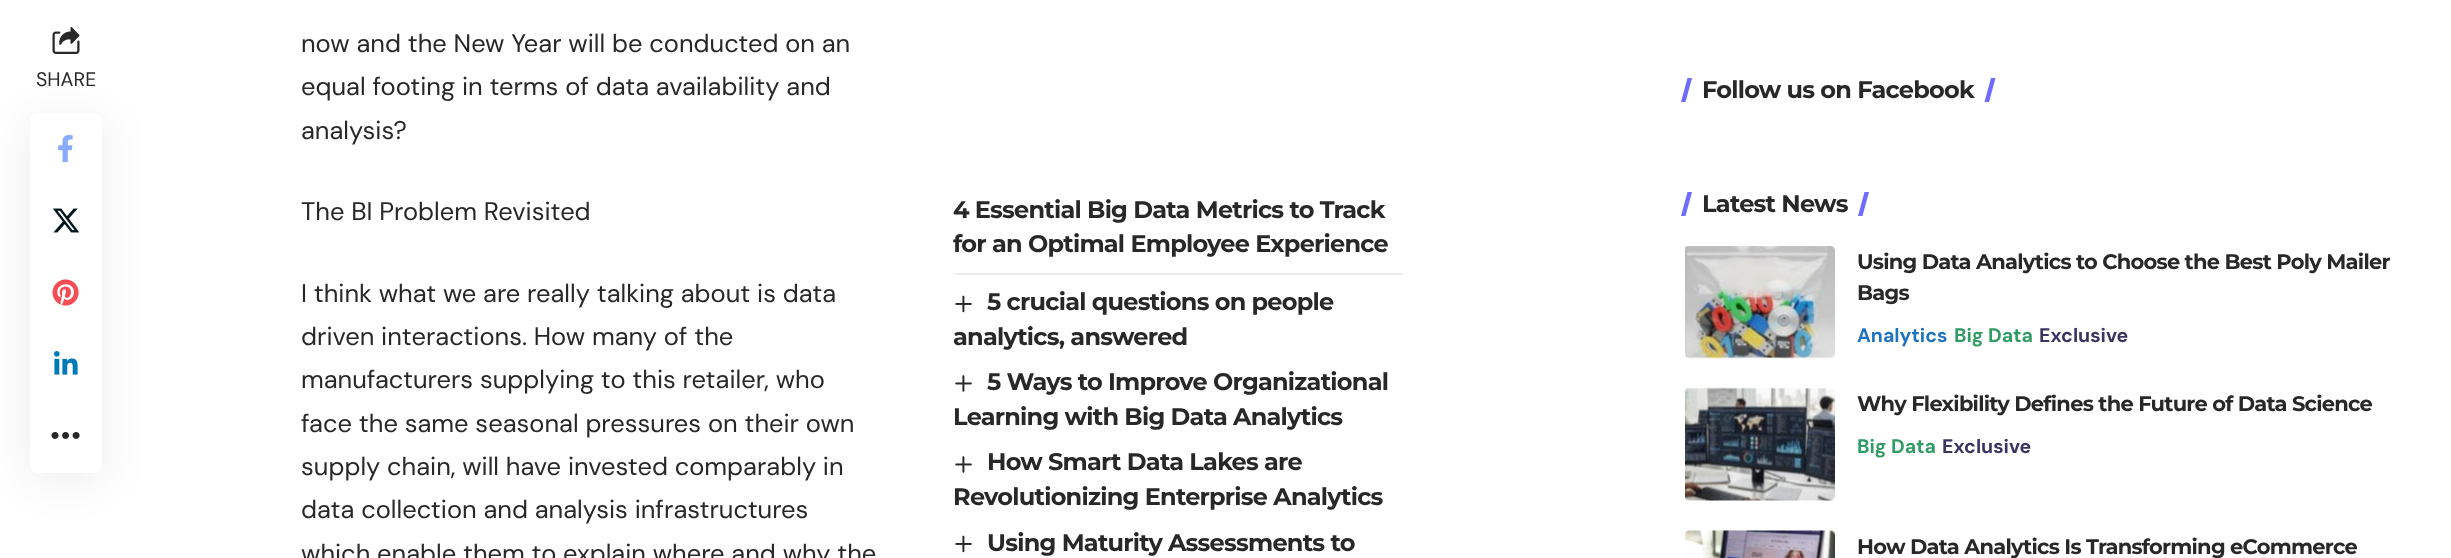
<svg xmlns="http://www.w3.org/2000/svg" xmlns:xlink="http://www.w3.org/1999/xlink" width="2451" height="558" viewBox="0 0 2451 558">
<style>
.cls-1{font:19.5px DM Sans;fill:#282828}
.cls-2{font:25.5px 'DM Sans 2';fill:#282828}
.cls-3{font:bold 24px Montserrat;letter-spacing:-0.75px;fill:#282828}
.cls-4{font:bold 21px Montserrat;letter-spacing:-0.75px;fill:#282828}
.cls-5{font:bold 19.5px DM Sans;fill:#1e73be}
.cls-6{font:bold 19.5px DM Sans;fill:#309b65}
.cls-7{font:bold 19.5px DM Sans;fill:#3d3363}
</style>
<rect width="100%" height="100%" fill="#ffffff"/>
<rect fill="#000000" fill-opacity="0.07" filter="blur(22.5px)" x="30" y="120" width="72" height="360" rx="8"/>
<rect fill="#ffffff" x="30" y="113" width="72" height="360" rx="8"/>
<image xlink:href="image0.png" x="58" y="135" width="15" height="27"/>
<image xlink:href="image1.png" x="52" y="208" width="28" height="25"/>
<image xlink:href="image2.png" x="52" y="279" width="27" height="27"/>
<image xlink:href="image3.png" x="54" y="351" width="24" height="24"/>
<image xlink:href="image4.png" x="51" y="432" width="29" height="7"/>
<image xlink:href="image5.png" x="52" y="27" width="28" height="27"/>
<rect fill="#ededed" x="953" y="273" width="450" height="2"/>
<image xlink:href="image6.png" x="955" y="295" width="17" height="18"/>
<image xlink:href="image7.png" x="955" y="375" width="17" height="17"/>
<image xlink:href="image7.png" x="955" y="456" width="17" height="17"/>
<image xlink:href="image6.png" x="955" y="535" width="17" height="18"/>
<path fill="#706bff" d="M1991 78H1995.5L1989 102H1984.5Z"/>
<path fill="#706bff" d="M1687.5 78H1692L1685.5 102H1681Z"/>
<path fill="#706bff" d="M1864.5 192H1869L1862.5 216H1858Z"/>
<path fill="#706bff" d="M1687.5 192H1692L1685.5 216H1681Z"/>
<image xlink:href="image8.png" x="1685" y="246" width="150" height="113"/>
<image xlink:href="image9.png" x="1685" y="387" width="150" height="114"/>
<image xlink:href="image10.png" x="1685" y="530" width="150" height="28"/>
<text class="cls-1" x="36" y="86">SHARE</text>
<text class="cls-2"><tspan x="301" y="52">now and the New Year will be conducted on an</tspan><tspan x="301" y="95">equal footing in terms of data availability and</tspan><tspan x="301" y="139">analysis?</tspan></text>
<text class="cls-2" x="301" y="220">The BI Problem Revisited</text>
<text class="cls-3"><tspan x="953" y="218">4 Essential Big Data Metrics to Track</tspan><tspan x="953" y="252">for an Optimal Employee Experience</tspan></text>
<text class="cls-3" x="987" y="310">5 crucial questions on people</text>
<text class="cls-3" x="953" y="345">analytics, answered</text>
<text class="cls-3" x="987" y="390">5 Ways to Improve Organizational</text>
<text class="cls-3" x="953" y="425">Learning with Big Data Analytics</text>
<text class="cls-3" x="987" y="470">How Smart Data Lakes are</text>
<text class="cls-3" x="953" y="505">Revolutionizing Enterprise Analytics</text>
<text class="cls-3" x="987" y="551">Using Maturity Assessments to</text>
<text class="cls-2"><tspan x="301" y="302">I think what we are really talking about is data</tspan><tspan x="301" y="345">driven interactions. How many of the</tspan><tspan x="301" y="388">manufacturers supplying to this retailer, who</tspan><tspan x="301" y="432">face the same seasonal pressures on their own</tspan><tspan x="301" y="475">supply chain, will have invested comparably in</tspan><tspan x="301" y="518">data collection and analysis infrastructures</tspan><tspan x="301" y="562">which enable them to explain where and why the</tspan></text>
<text class="cls-3" x="1702" y="98">Follow us on Facebook</text>
<text class="cls-3" x="1702" y="212">Latest News</text>
<text class="cls-4"><tspan x="1857" y="269">Using Data Analytics to Choose the Best Poly Mailer</tspan><tspan x="1857" y="300">Bags</tspan></text>
<text class="cls-5" x="1857" y="342">Analytics</text>
<text class="cls-6" x="1954" y="342">Big Data</text>
<text class="cls-7" x="2039" y="342">Exclusive</text>
<text class="cls-4" x="1857" y="411">Why Flexibility Defines the Future of Data Science</text>
<text class="cls-6" x="1857" y="453">Big Data</text>
<text class="cls-7" x="1942" y="453">Exclusive</text>
<text class="cls-4" x="1857" y="554">How Data Analytics Is Transforming eCommerce</text>
</svg>
